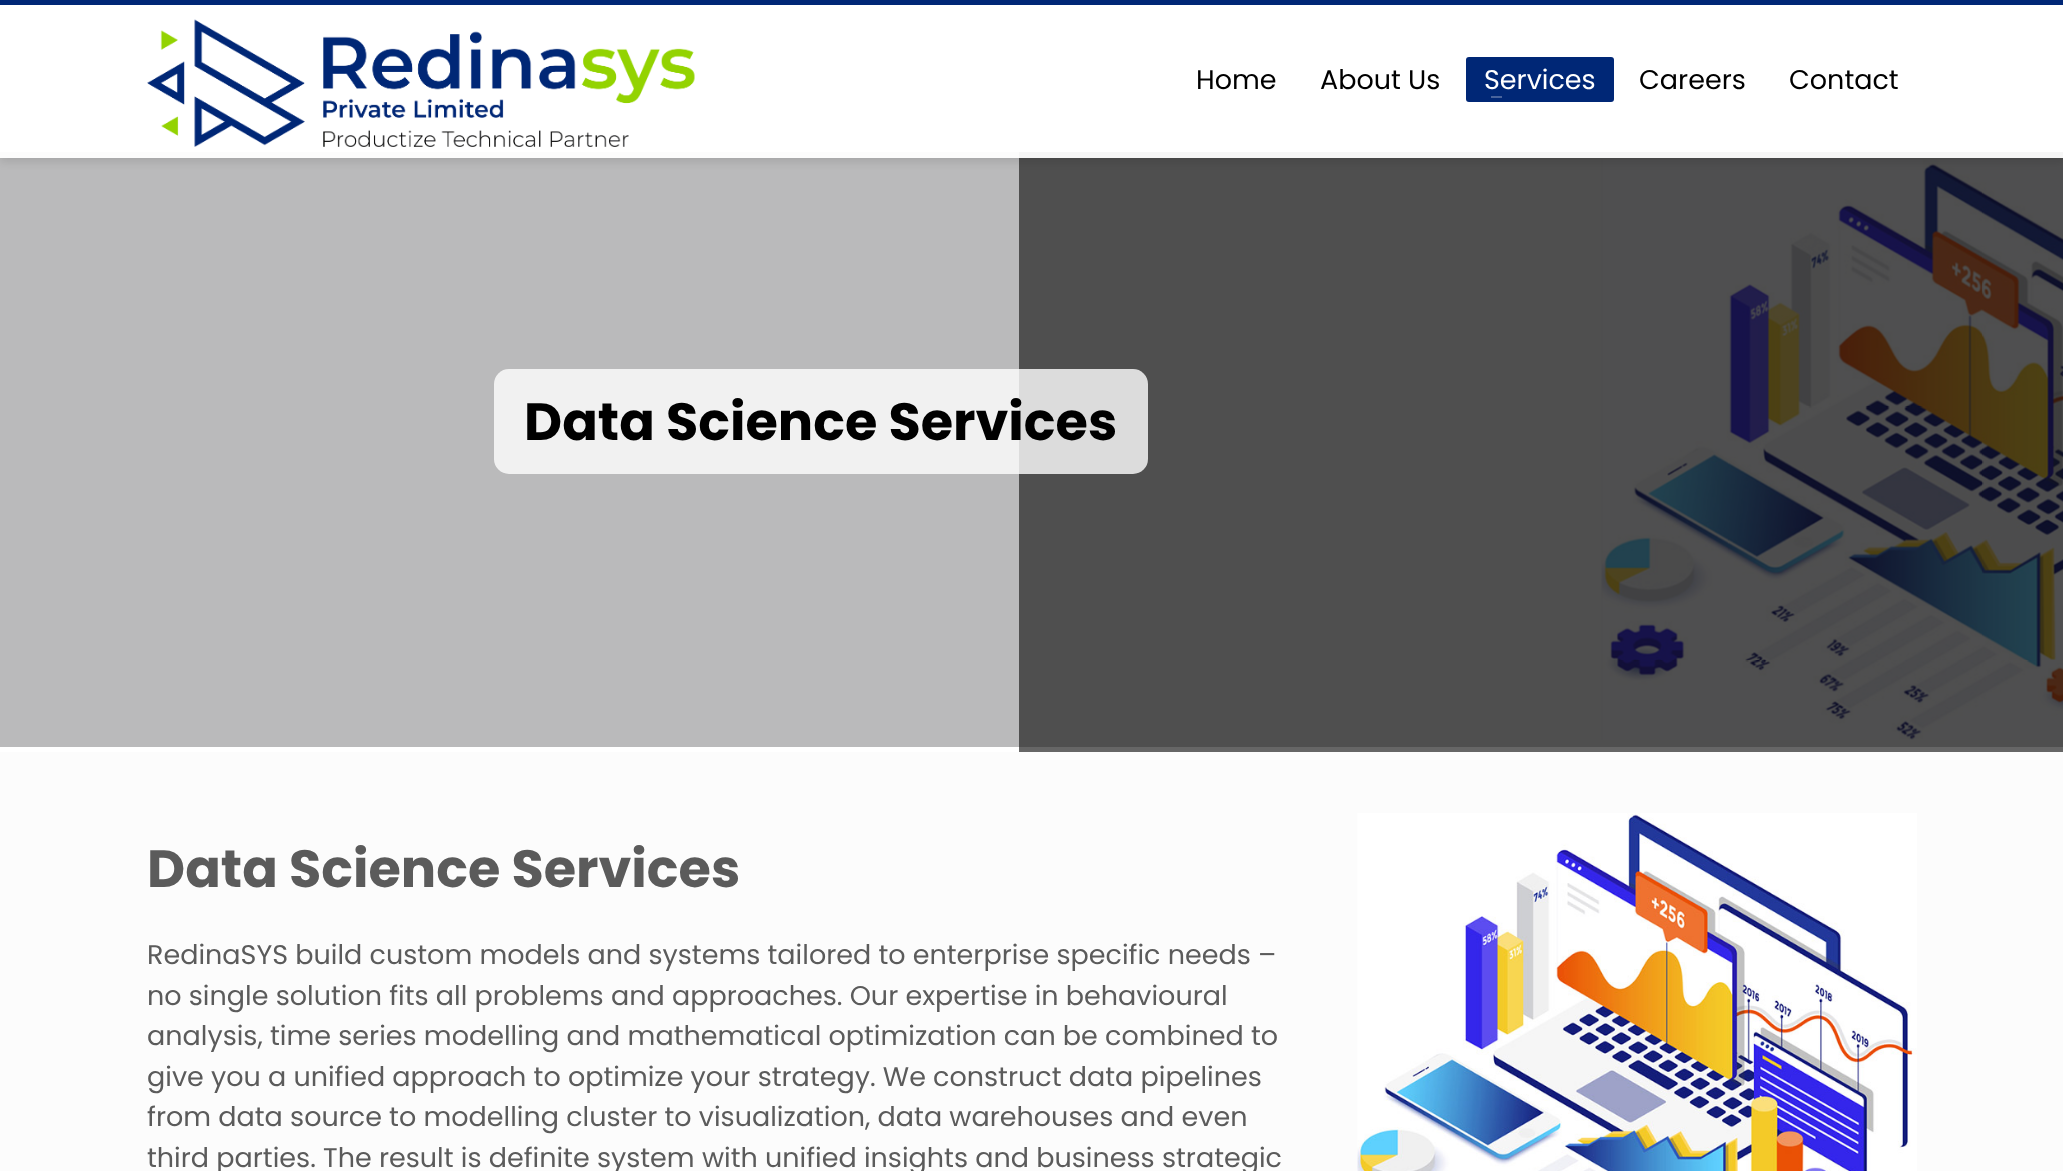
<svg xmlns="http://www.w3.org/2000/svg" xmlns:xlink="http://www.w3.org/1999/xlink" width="2063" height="1171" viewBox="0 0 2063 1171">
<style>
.cls-1{font:27px Poppins;fill:#000000}
.cls-2{font:27px Poppins;fill:#ffffff}
.cls-3{font:bold 52.5px Poppins;fill:#000000}
.cls-4{font:bold 52.5px Poppins;fill:#5b5b5b}
.cls-5{font:27px Poppins;fill:#5b5b5b}
</style>
<defs>
<clipPath id="clip1"><path d="M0 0H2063V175H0ZM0 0H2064V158H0Z" clip-rule="evenodd"/></clipPath>
</defs>
<rect width="100%" height="100%" fill="#fcfcfc"/>
<rect fill="#bababb" x="0" y="152" width="1019" height="595"/>
<rect fill="#4f4f4f" x="1019" y="152" width="1044" height="595"/>
<image xlink:href="image1.png" x="1601" y="159" width="462" height="581"/>
<g clip-path="url(#clip1)">
<rect fill="#000000" fill-opacity="0.1" filter="blur(4px)" x="0" y="5" width="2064" height="157"/>
</g>
<rect fill="#ffffff" fill-opacity="0.95" x="0" y="5" width="2063" height="153"/>
<rect fill="#002776" x="0" y="0" width="2063" height="5"/>
<image xlink:href="image0.png" x="147" y="19" width="548" height="128"/>
<rect fill="#002776" x="1466" y="57" width="148" height="45" rx="3"/>
<rect fill="#48639c" x="1491" y="96" width="11" height="2"/>
<rect fill="#ffffff" x="0" y="747" width="1019" height="5"/>
<rect fill="#666666" x="1019" y="747" width="1044" height="5"/>
<rect fill="#ffffff" fill-opacity="0.8" x="494" y="369" width="654" height="105" rx="15"/>
<image xlink:href="image2.png" x="1357" y="813" width="560" height="358"/>
<text class="cls-1" x="1196" y="89">Home</text>
<text class="cls-1" x="1320" y="89">About Us</text>
<text class="cls-2" x="1484" y="89">Services</text>
<text class="cls-1" x="1639" y="89">Careers</text>
<text class="cls-1" x="1789" y="89">Contact</text>
<text class="cls-3" x="524" y="440">Data Science Services</text>
<text class="cls-4" x="147" y="887">Data Science Services</text>
<text class="cls-5"><tspan x="147" y="964">RedinaSYS build custom models and systems tailored to enterprise specific needs –</tspan><tspan x="147" y="1005">no single solution fits all problems and approaches. Our expertise in behavioural</tspan><tspan x="147" y="1045">analysis, time series modelling and mathematical optimization can be combined to</tspan><tspan x="147" y="1086">give you a unified approach to optimize your strategy. We construct data pipelines</tspan><tspan x="147" y="1126">from data source to modelling cluster to visualization, data warehouses and even</tspan><tspan x="147" y="1167">third parties. The result is definite system with unified insights and business strategic</tspan></text>
</svg>
